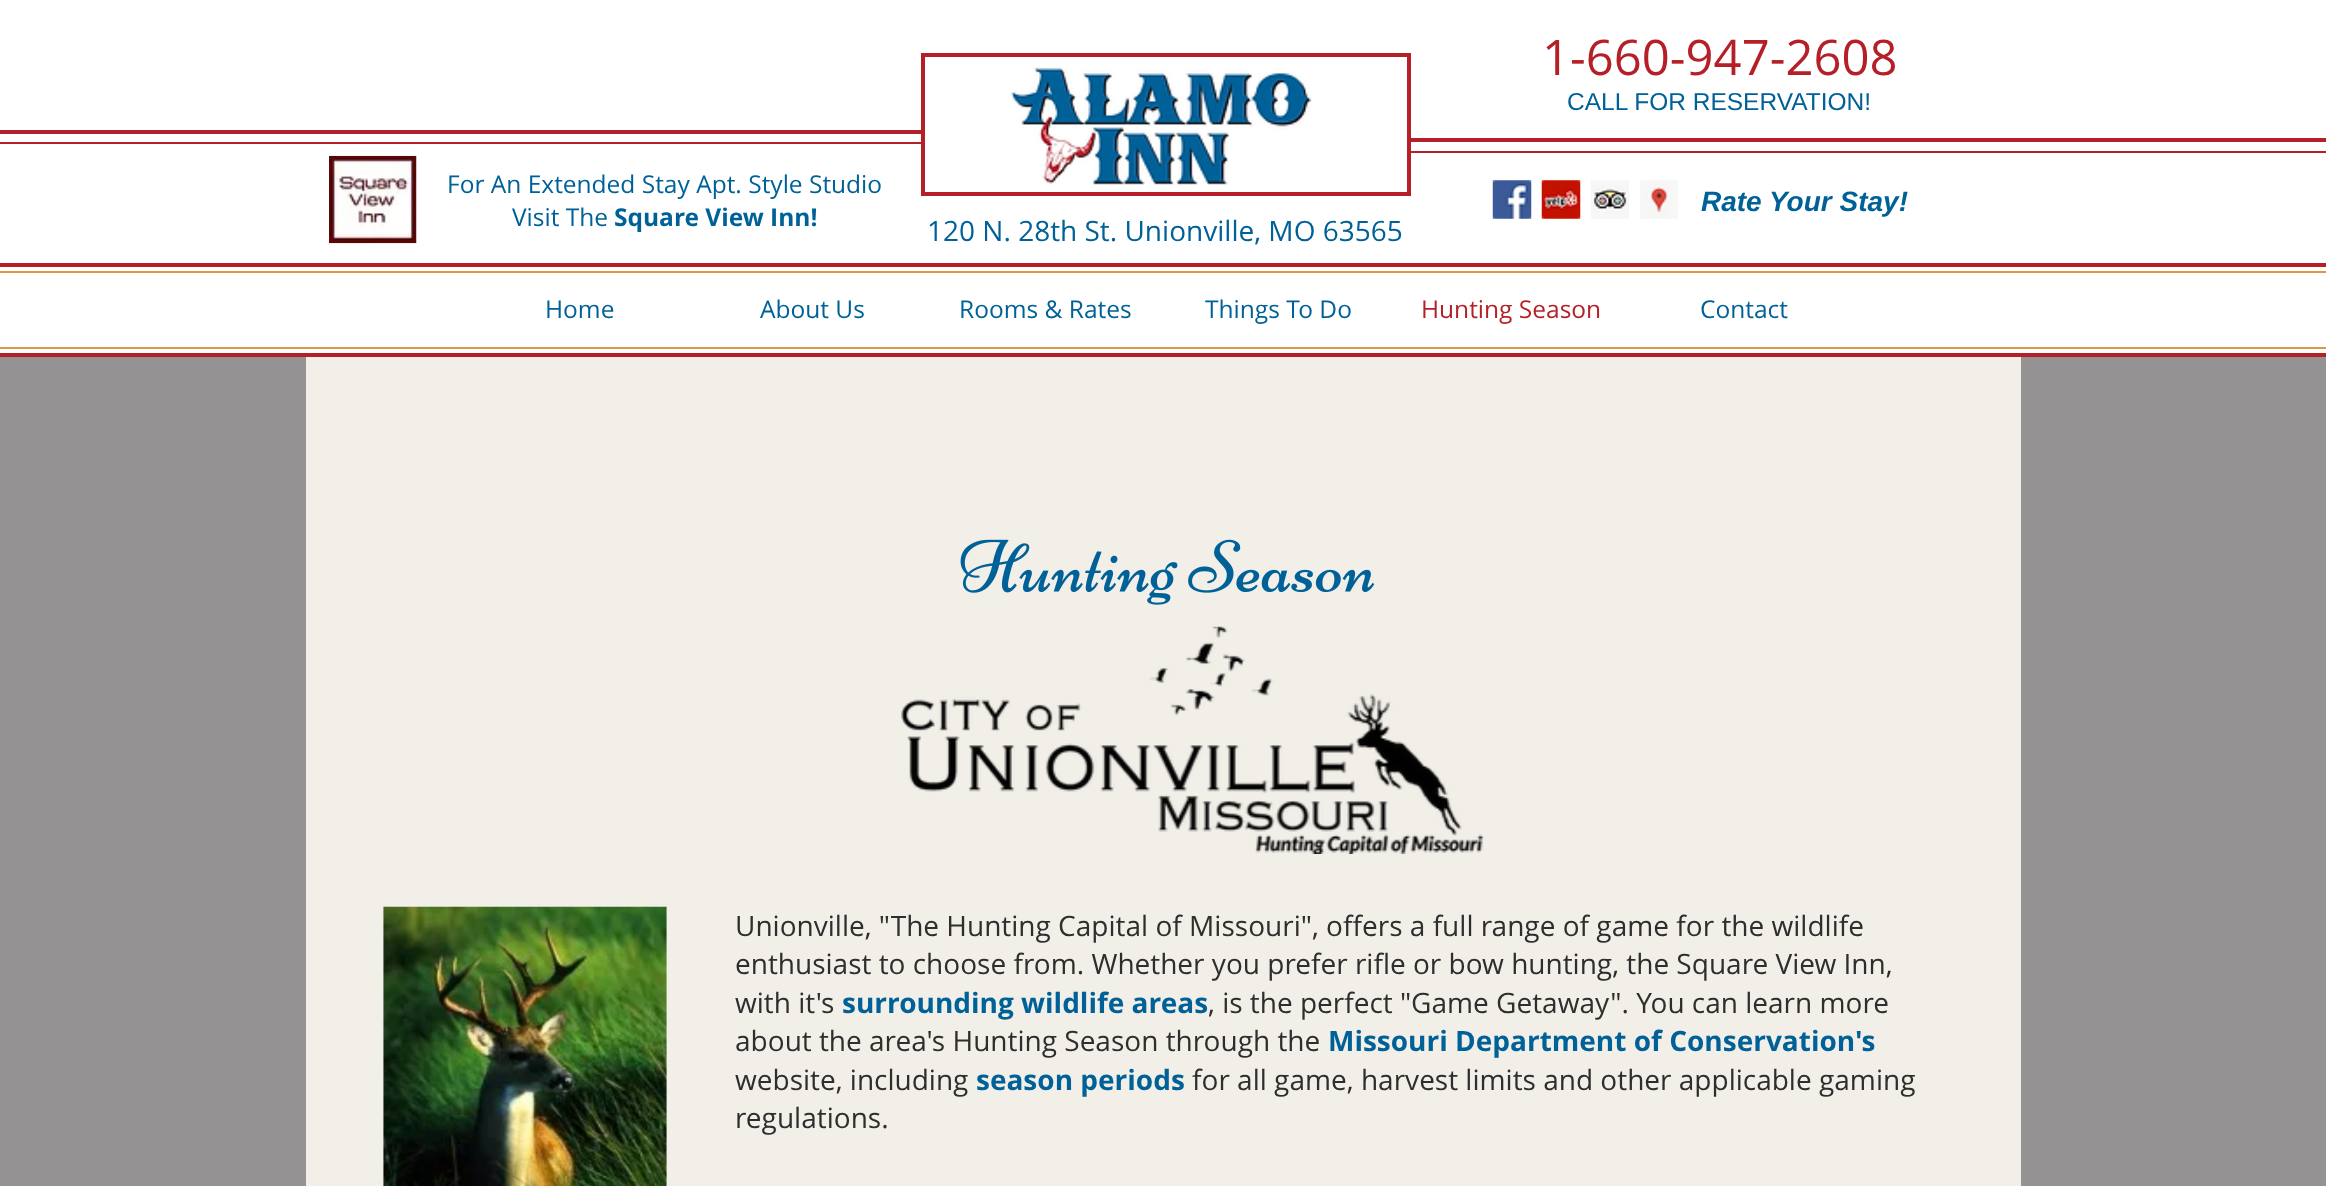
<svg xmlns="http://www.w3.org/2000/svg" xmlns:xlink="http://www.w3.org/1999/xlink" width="2326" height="1186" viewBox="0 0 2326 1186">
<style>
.cls-1{font:49px Open Sans;fill:#b51f27}
.cls-2{font:24.5px Liberation Sans;fill:#006198}
.cls-3{font:24.5px Open Sans;fill:#006198}
.cls-4{font:bold 24.5px Open Sans;fill:#006198}
.cls-5{font:italic bold 28px Liberation Sans;fill:#006198}
.cls-6{font:28px Open Sans;fill:#006198}
.cls-7{font:24.5px Open Sans;fill:#b51f27}
.cls-8{font:28px Open Sans;fill:#2f2e2e}
.cls-9{font:bold 28px Open Sans;fill:#006198}
</style>
<rect width="100%" height="100%" fill="#959294"/>
<rect fill="#ffffff" x="0" y="0" width="2326" height="353"/>
<rect fill="#b51f27" x="0" y="130" width="921" height="4"/>
<rect fill="#b51f27" x="0" y="142" width="921" height="2"/>
<rect fill="none" stroke="#b51f27" stroke-width="4" x="923" y="55" width="486" height="139"/>
<image xlink:href="image0.png" x="1011" y="67" width="301" height="118"/>
<rect fill="#b51f27" x="1409" y="138" width="917" height="4"/>
<rect fill="#b51f27" x="1409" y="151" width="917" height="2"/>
<image xlink:href="image1.png" x="329" y="155" width="88" height="89"/>
<image xlink:href="image2.png" x="1492" y="180" width="40" height="39"/>
<image xlink:href="image3.png" x="1541" y="180" width="40" height="39"/>
<image xlink:href="image4.png" x="1591" y="180" width="38" height="39"/>
<image xlink:href="image5.png" x="1640" y="180" width="38" height="39"/>
<rect fill="none" stroke="#b51f27" stroke-width="4" x="-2" y="265" width="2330" height="90"/>
<rect fill="#dd974b" x="0" y="271" width="2326" height="2"/>
<rect fill="#dd974b" x="0" y="347" width="2326" height="2"/>
<rect fill="#f2efe9" x="306" y="357" width="1715" height="829"/>
<image xlink:href="image6.png" x="960" y="539" width="415" height="66"/>
<image xlink:href="image7.png" x="901" y="626" width="583" height="228"/>
<image xlink:href="image8.png" x="383" y="906" width="284" height="280"/>
<text class="cls-1" x="1542" y="75">1-660-947-2608</text>
<text class="cls-2" x="1567" y="110">CALL FOR RESERVATION!</text>
<text class="cls-3" x="447" y="193">For An Extended Stay Apt. Style Studio</text>
<text class="cls-3" x="512" y="226">Visit The</text>
<text class="cls-4" x="614" y="226">Square View Inn!</text>
<text class="cls-5" x="1701" y="211">Rate Your Stay!</text>
<text class="cls-6" x="927" y="241">120 N. 28th St. Unionville, MO 63565</text>
<text class="cls-3" x="545" y="318">Home</text>
<text class="cls-3" x="760" y="318">About Us</text>
<text class="cls-3" x="959" y="318">Rooms &amp; Rates</text>
<text class="cls-3" x="1205" y="318">Things To Do</text>
<text class="cls-7" x="1421" y="318">Hunting Season</text>
<text class="cls-3" x="1700" y="318">Contact</text>
<text class="cls-8"><tspan x="735" y="936">Unionville, "The Hunting Capital of Missouri", offers a full range of game for the wildlife</tspan><tspan x="735" y="974">enthusiast to choose from. Whether you prefer rifle or bow hunting, the Square View Inn,</tspan><tspan x="735" y="1013">with it's</tspan></text>
<text class="cls-9" x="842" y="1013">surrounding wildlife areas</text>
<text class="cls-8" x="1208" y="1013">, is the perfect "Game Getaway". You can learn more</text>
<text class="cls-8" x="735" y="1051">about the area's Hunting Season through the</text>
<text class="cls-9" x="1328" y="1051">Missouri Department of Conservation's</text>
<text class="cls-8" x="735" y="1090">website, including</text>
<text class="cls-9" x="976" y="1090">season periods</text>
<text class="cls-8" x="1192" y="1090">for all game, harvest limits and other applicable gaming</text>
<text class="cls-8" x="735" y="1128">regulations.</text>
</svg>
